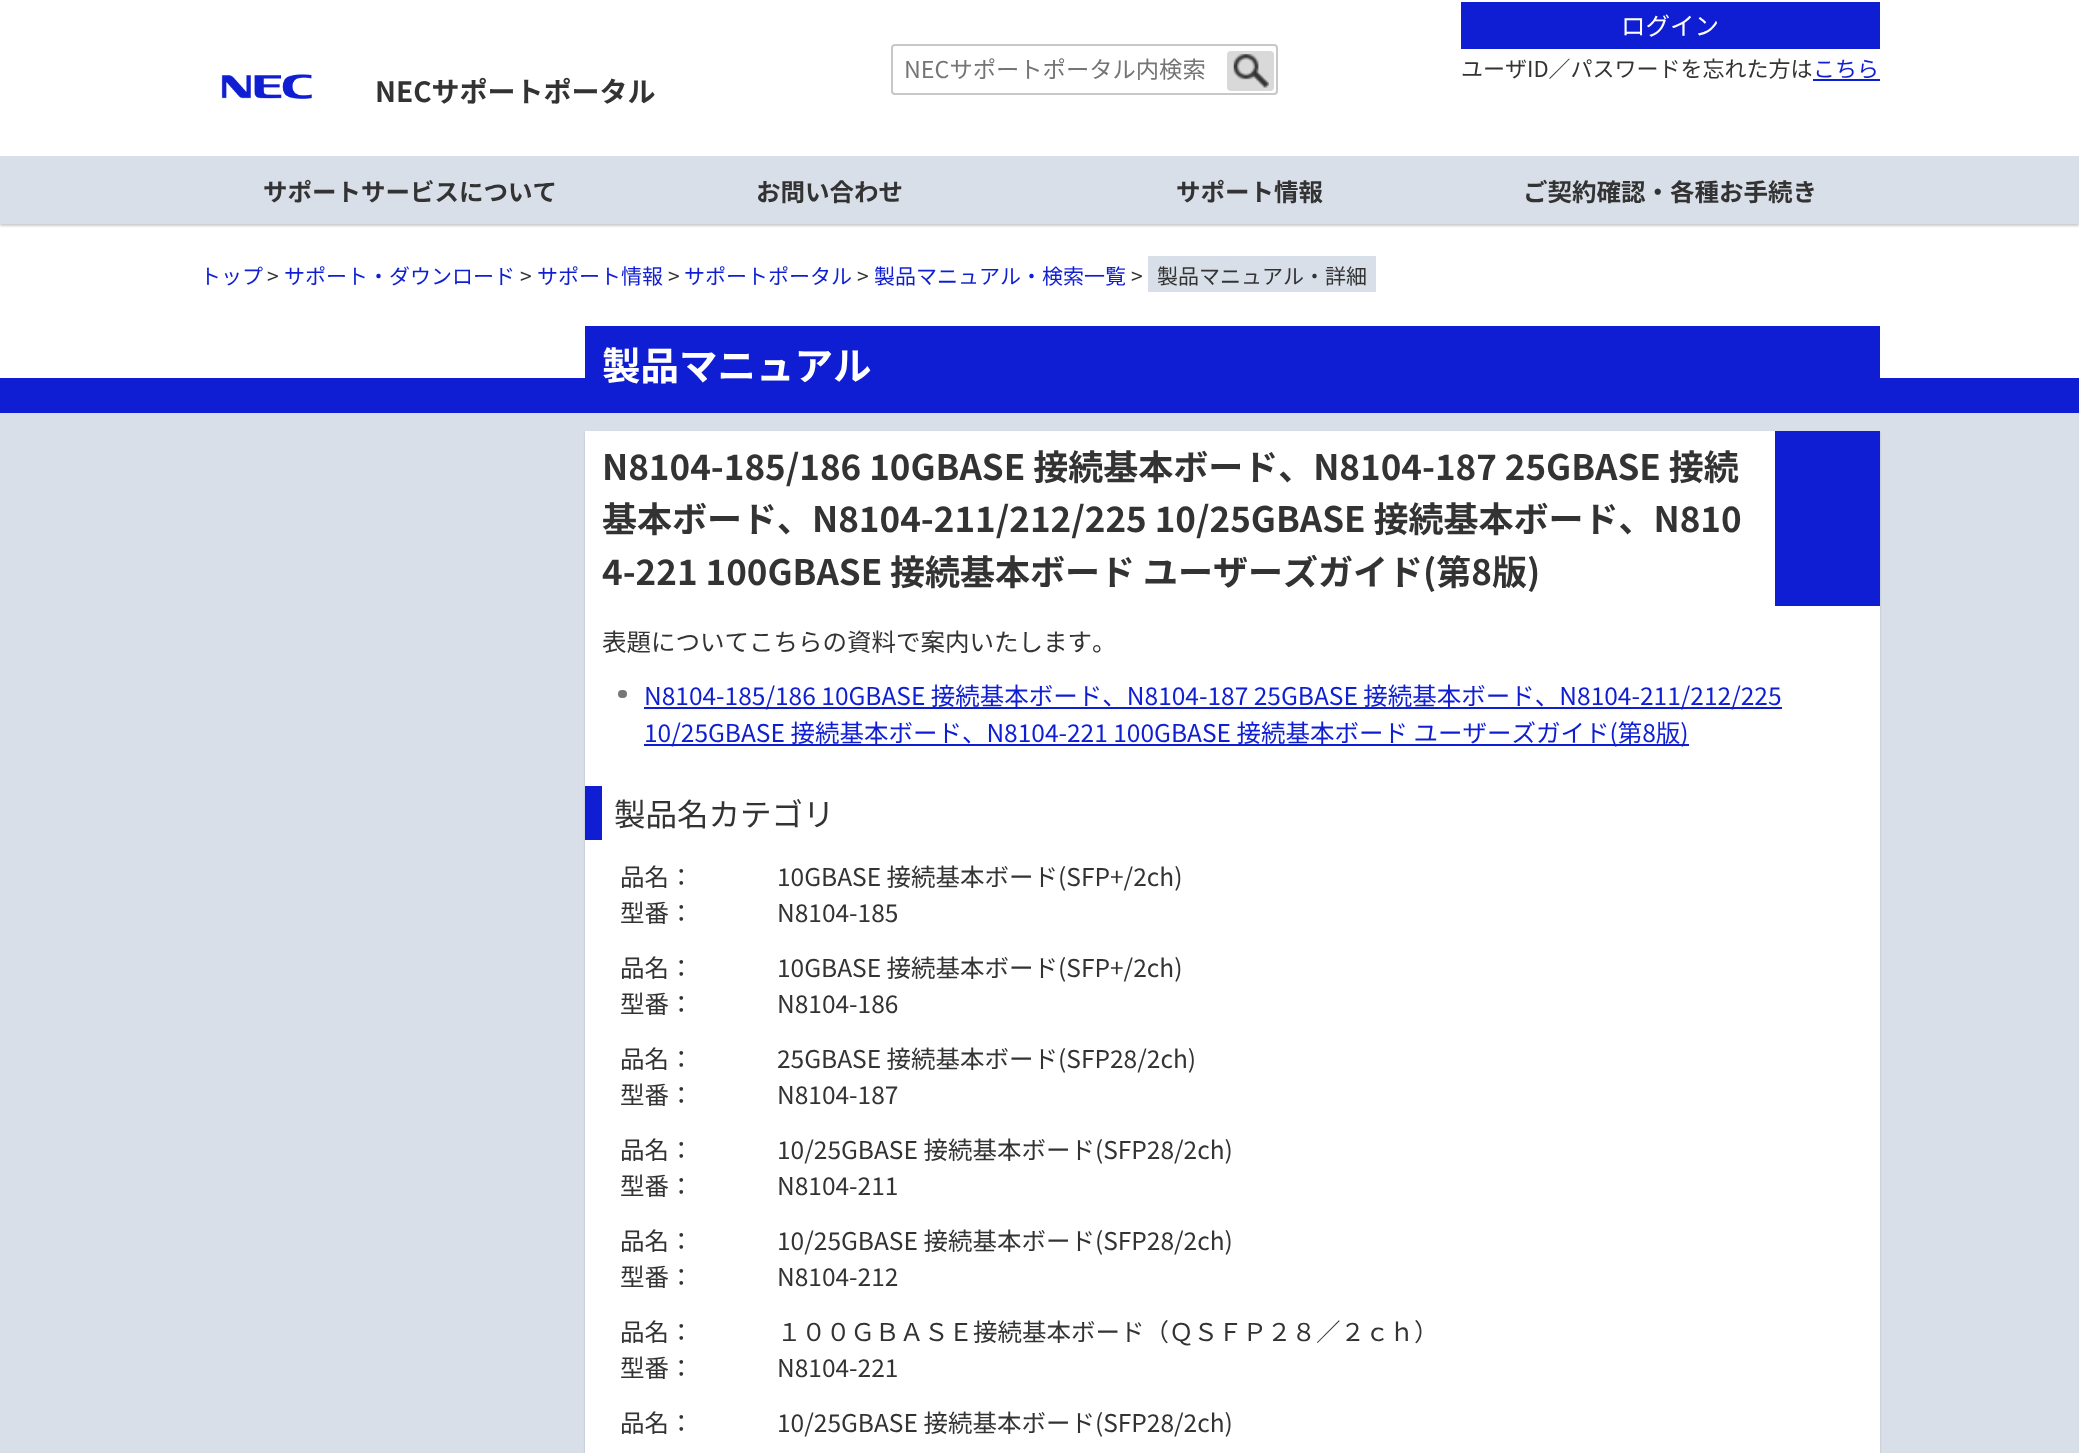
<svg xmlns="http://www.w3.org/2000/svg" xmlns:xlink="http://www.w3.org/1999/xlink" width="2079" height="1453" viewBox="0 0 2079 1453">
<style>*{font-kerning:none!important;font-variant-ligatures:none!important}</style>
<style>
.cls-1{font:23.3px Noto Sans JP;fill:#757575}
.cls-2{font:24.5px Noto Sans JP;fill:#ffffff}
.cls-3{font:22px Noto Sans JP;fill:#333333}
.cls-4{font:22px Noto Sans JP;fill:#0f1ed2}
.cls-5{font:bold 28px Noto Sans JP;fill:#333333}
.cls-6{font:bold 24.5px Noto Sans JP;fill:#333333}
.cls-7{font:21px Noto Sans JP;fill:#0f1ed2}
.cls-8{font:21px Noto Sans JP;fill:#333333}
.cls-9{font:bold 38.5px Noto Sans JP;fill:#ffffff}
.cls-10{font:bold 35px Noto Sans JP;fill:#333333}
.cls-11{font:24.5px Noto Sans JP;fill:#333333}
.cls-12{font:24.5px Noto Sans JP;fill:#0f1ed2}
.cls-13{font:31.5px Noto Sans JP;fill:#333333}
</style>
<rect width="100%" height="100%" fill="#ffffff"/>
<rect fill="none" stroke="#c8c8c8" stroke-width="2" x="892" y="45" width="385" height="49" rx="3"/>
<rect fill="#d9d9d9" x="1227" y="51" width="47" height="40" rx="4"/>
<image xlink:href="image0.png" x="1233" y="54" width="36" height="34"/>
<rect fill="#0f1ed2" x="1461" y="2" width="419" height="47"/>
<rect fill="#0f1ed2" x="1813" y="79" width="67" height="2"/>
<image xlink:href="image1.png" x="221" y="74" width="91" height="25"/>
<rect fill="#000000" fill-opacity="0.2" filter="blur(1px)" x="0" y="158" width="2079" height="68"/>
<rect fill="#d9dfe9" x="0" y="156" width="2079" height="68"/>
<rect fill="#d9dfe9" x="1148" y="256" width="228" height="36"/>
<rect fill="#d9dfe9" x="0" y="413" width="2079" height="1040"/>
<rect fill="#0f1ed2" x="585" y="326" width="1295" height="52"/>
<rect fill="#000000" fill-opacity="0.15" filter="blur(1px)" x="585" y="432" width="1295" height="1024"/>
<rect fill="#ffffff" x="585" y="431" width="1295" height="1022"/>
<rect fill="#0f1ed2" x="1775" y="431" width="105" height="175"/>
<rect fill="#777777" x="618" y="690" width="9" height="8" rx="4"/>
<rect fill="#0f1ed2" x="644" y="707" width="1138" height="2"/>
<rect fill="#0f1ed2" x="644" y="744" width="1045" height="2"/>
<rect fill="#0f1ed2" x="585" y="786" width="17" height="54"/>
<rect fill="#0f1ed2" x="0" y="378" width="2079" height="35"/>
<text class="cls-1" x="904" y="78">NECサポートポータル内検索</text>
<text class="cls-2" x="1621" y="35">ログイン</text>
<text class="cls-3" x="1461" y="77">ユーザID／パスワードを忘れた方は</text>
<text class="cls-4" x="1813" y="77">こちら</text>
<text class="cls-5" x="375" y="102">NECサポートポータル</text>
<text class="cls-6" x="263" y="201">サポートサービスについて</text>
<text class="cls-6" x="756" y="201">お問い合わせ</text>
<text class="cls-6" x="1176" y="201">サポート情報</text>
<text class="cls-6" x="1523" y="201">ご契約確認・各種お手続き</text>
<text class="cls-7" x="200" y="284">トップ</text>
<text class="cls-8" x="267" y="284">&gt;</text>
<text class="cls-7" x="284" y="284">サポート・ダウンロード</text>
<text class="cls-8" x="520" y="284">&gt;</text>
<text class="cls-7" x="537" y="284">サポート情報</text>
<text class="cls-8" x="668" y="284">&gt;</text>
<text class="cls-7" x="684" y="284">サポートポータル</text>
<text class="cls-8" x="857" y="284">&gt;</text>
<text class="cls-7" x="874" y="284">製品マニュアル・検索一覧</text>
<text class="cls-8" x="1131" y="284">&gt;</text>
<text class="cls-8" x="1157" y="284">製品マニュアル・詳細</text>
<text class="cls-9" x="602" y="380">製品マニュアル</text>
<text class="cls-10"><tspan x="602" y="480">N8104-185/186 10GBASE 接続基本ボード、N8104-187 25GBASE 接続</tspan><tspan x="602" y="532">基本ボード、N8104-211/212/225 10/25GBASE 接続基本ボード、N810</tspan><tspan x="602" y="585">4-221 100GBASE 接続基本ボード ユーザーズガイド(第8版)</tspan></text>
<text class="cls-11" x="602" y="651">表題についてこちらの資料で案内いたします。</text>
<text class="cls-12"><tspan x="644" y="705">N8104-185/186 10GBASE 接続基本ボード、N8104-187 25GBASE 接続基本ボード、N8104-211/212/225</tspan><tspan x="644" y="742">10/25GBASE 接続基本ボード、N8104-221 100GBASE 接続基本ボード ユーザーズガイド(第8版)</tspan></text>
<text class="cls-13" x="614" y="826">製品名カテゴリ</text>
<text class="cls-11" x="620" y="886">品名：</text>
<text class="cls-11" x="777" y="886">10GBASE 接続基本ボード(SFP+/2ch)</text>
<text class="cls-11" x="620" y="922">型番：</text>
<text class="cls-11" x="777" y="922">N8104-185</text>
<text class="cls-11" x="620" y="977">品名：</text>
<text class="cls-11" x="777" y="977">10GBASE 接続基本ボード(SFP+/2ch)</text>
<text class="cls-11" x="620" y="1013">型番：</text>
<text class="cls-11" x="777" y="1013">N8104-186</text>
<text class="cls-11" x="620" y="1068">品名：</text>
<text class="cls-11" x="777" y="1068">25GBASE 接続基本ボード(SFP28/2ch)</text>
<text class="cls-11" x="620" y="1104">型番：</text>
<text class="cls-11" x="777" y="1104">N8104-187</text>
<text class="cls-11" x="620" y="1159">品名：</text>
<text class="cls-11" x="777" y="1159">10/25GBASE 接続基本ボード(SFP28/2ch)</text>
<text class="cls-11" x="620" y="1195">型番：</text>
<text class="cls-11" x="777" y="1195">N8104-211</text>
<text class="cls-11" x="620" y="1250">品名：</text>
<text class="cls-11" x="777" y="1250">10/25GBASE 接続基本ボード(SFP28/2ch)</text>
<text class="cls-11" x="620" y="1286">型番：</text>
<text class="cls-11" x="777" y="1286">N8104-212</text>
<text class="cls-11" x="620" y="1341">品名：</text>
<text class="cls-11" x="777" y="1341">１００ＧＢＡＳＥ接続基本ボード（ＱＳＦＰ２８／２ｃｈ）</text>
<text class="cls-11" x="620" y="1377">型番：</text>
<text class="cls-11" x="777" y="1377">N8104-221</text>
<text class="cls-11" x="620" y="1432">品名：</text>
<text class="cls-11" x="777" y="1432">10/25GBASE 接続基本ボード(SFP28/2ch)</text>
</svg>
